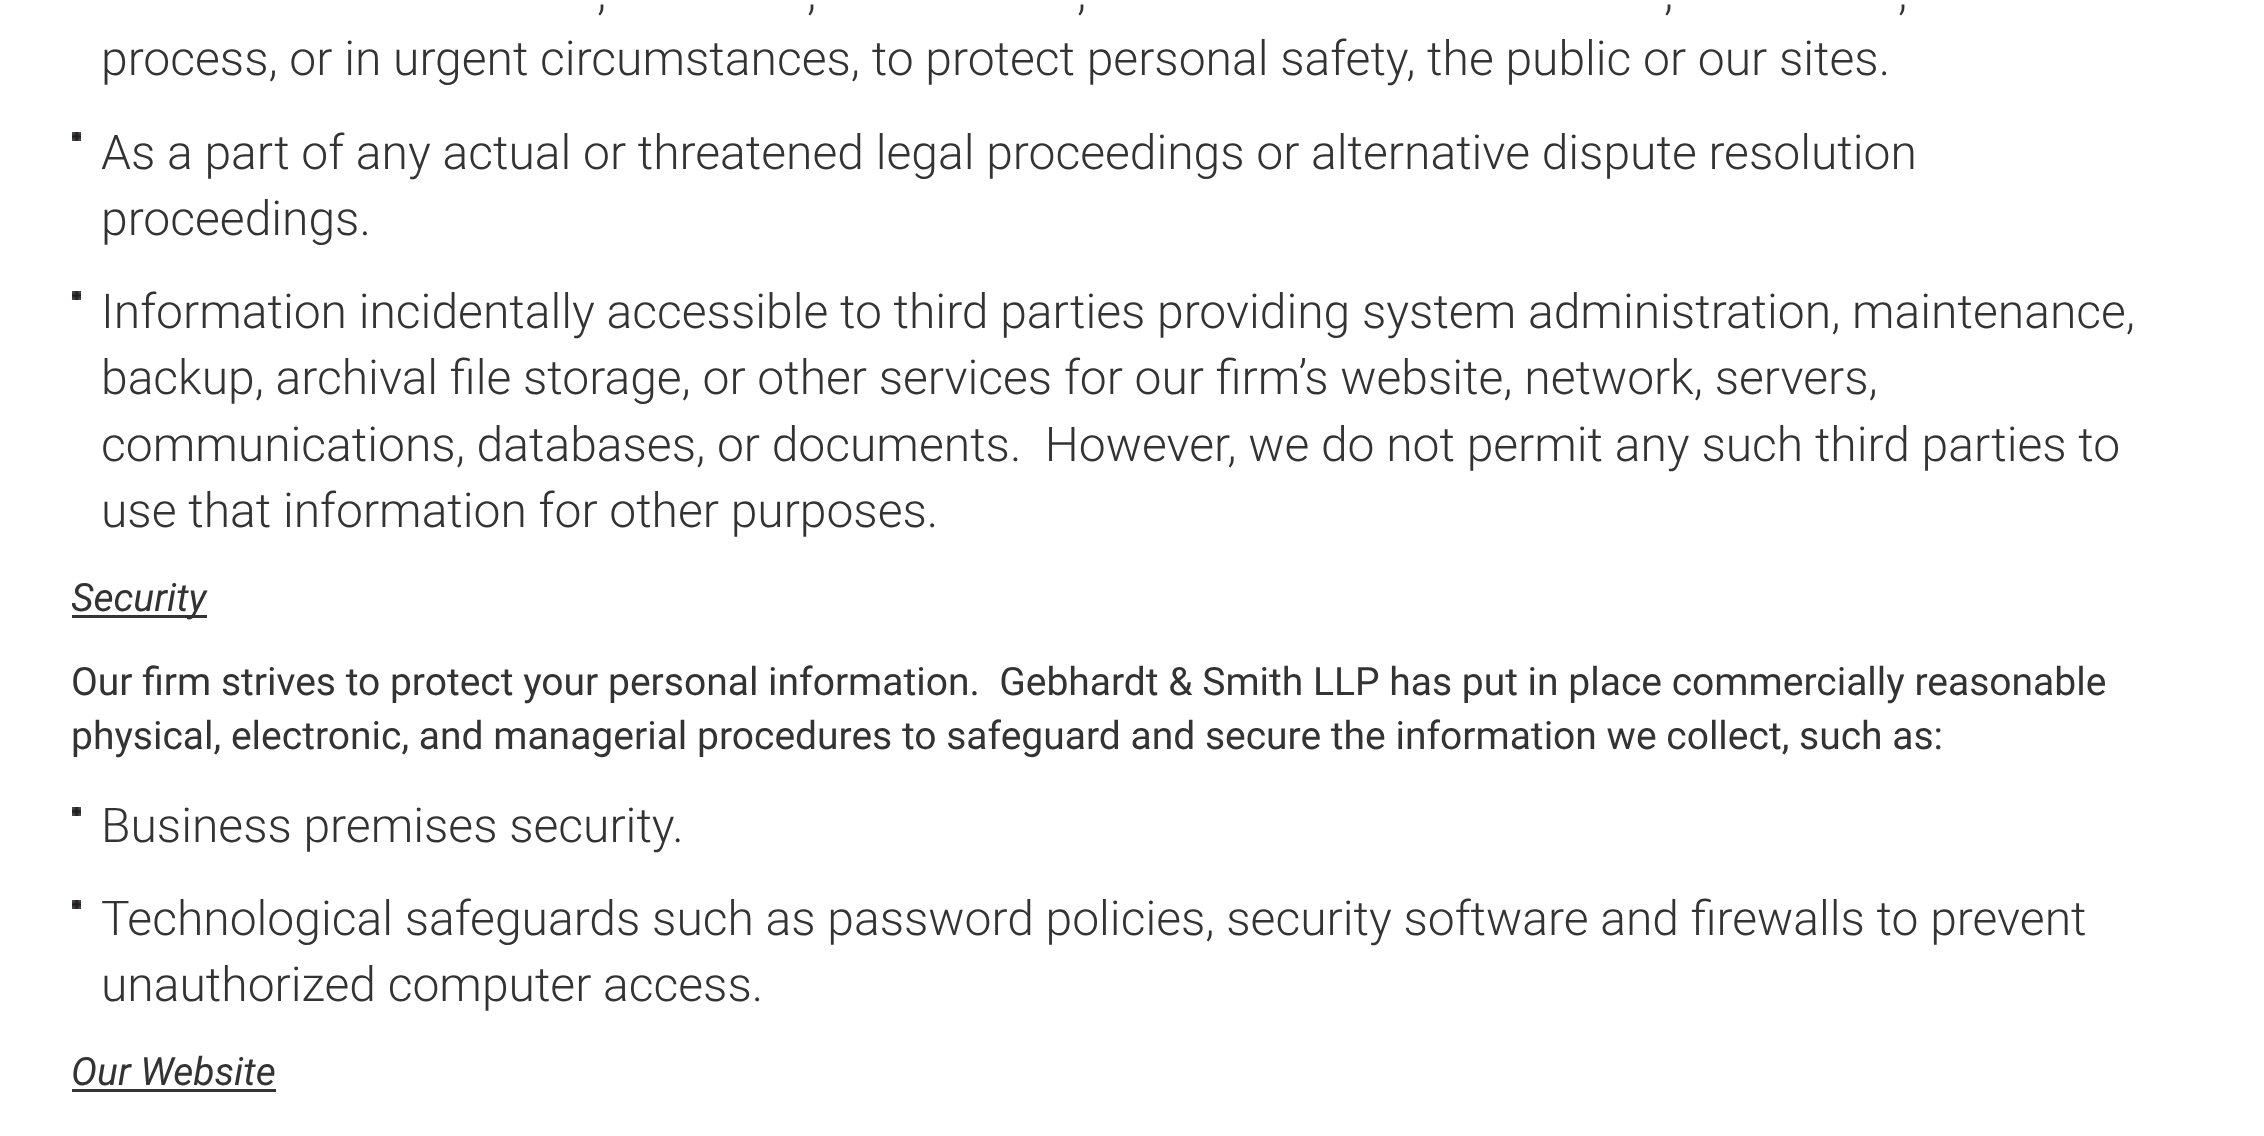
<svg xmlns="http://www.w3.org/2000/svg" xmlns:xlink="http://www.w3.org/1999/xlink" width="2264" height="1136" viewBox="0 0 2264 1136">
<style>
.cls-1{font:300 48px Roboto;fill:#333333}
.cls-2{font:italic 39px Roboto;fill:#333333}
.cls-3{font:39px Roboto;fill:#333333}
</style>
<defs>
<clipPath id="clip1"><rect x="72" y="0" width="2121" height="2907"/></clipPath>
</defs>
<rect width="100%" height="100%" fill="#ffffff"/>
<image xlink:href="image0.png" x="72" y="132" width="9" height="9"/>
<image xlink:href="image0.png" x="72" y="291" width="9" height="9"/>
<rect fill="#333333" x="72" y="615" width="135" height="3"/>
<image xlink:href="image0.png" x="72" y="807" width="9" height="9"/>
<image xlink:href="image0.png" x="72" y="900" width="9" height="9"/>
<rect fill="#333333" x="72" y="1089" width="204" height="3"/>
<text class="cls-1" x="597" y="9">,</text>
<text class="cls-1" x="807" y="9">,</text>
<text class="cls-1" x="1077" y="9">,</text>
<text class="cls-1" x="1664" y="9">,</text>
<text class="cls-1" x="1898" y="9">,</text>
<text class="cls-1" xml:space="preserve"><tspan x="101" y="75">process, or in urgent circumstances, to protect personal safety, the public or our sites.</tspan><tspan x="101" y="169">As a part of any actual or threatened legal proceedings or alternative dispute resolution</tspan><tspan x="101" y="235">proceedings.</tspan><tspan x="101" y="328">Information incidentally accessible to third parties providing system administration, maintenance,</tspan><tspan x="101" y="394">backup, archival file storage, or other services for our firm’s website, network, servers,</tspan><tspan x="101" y="461">communications, databases, or documents.  However, we do not permit any such third parties to</tspan><tspan x="101" y="527">use that information for other purposes.</tspan></text>
<g clip-path="url(#clip1)">
<text class="cls-2" x="71" y="611">Security</text>
</g>
<text class="cls-3" xml:space="preserve"><tspan x="71" y="695">Our firm strives to protect your personal information.  Gebhardt &amp; Smith LLP has put in place commercially reasonable</tspan><tspan x="71" y="749">physical, electronic, and managerial procedures to safeguard and secure the information we collect, such as:</tspan></text>
<text class="cls-1"><tspan x="101" y="842">Business premises security.</tspan><tspan x="101" y="935">Technological safeguards such as password policies, security software and firewalls to prevent</tspan><tspan x="101" y="1001">unauthorized computer access.</tspan></text>
<text class="cls-2" x="71" y="1085">Our Website</text>
</svg>
